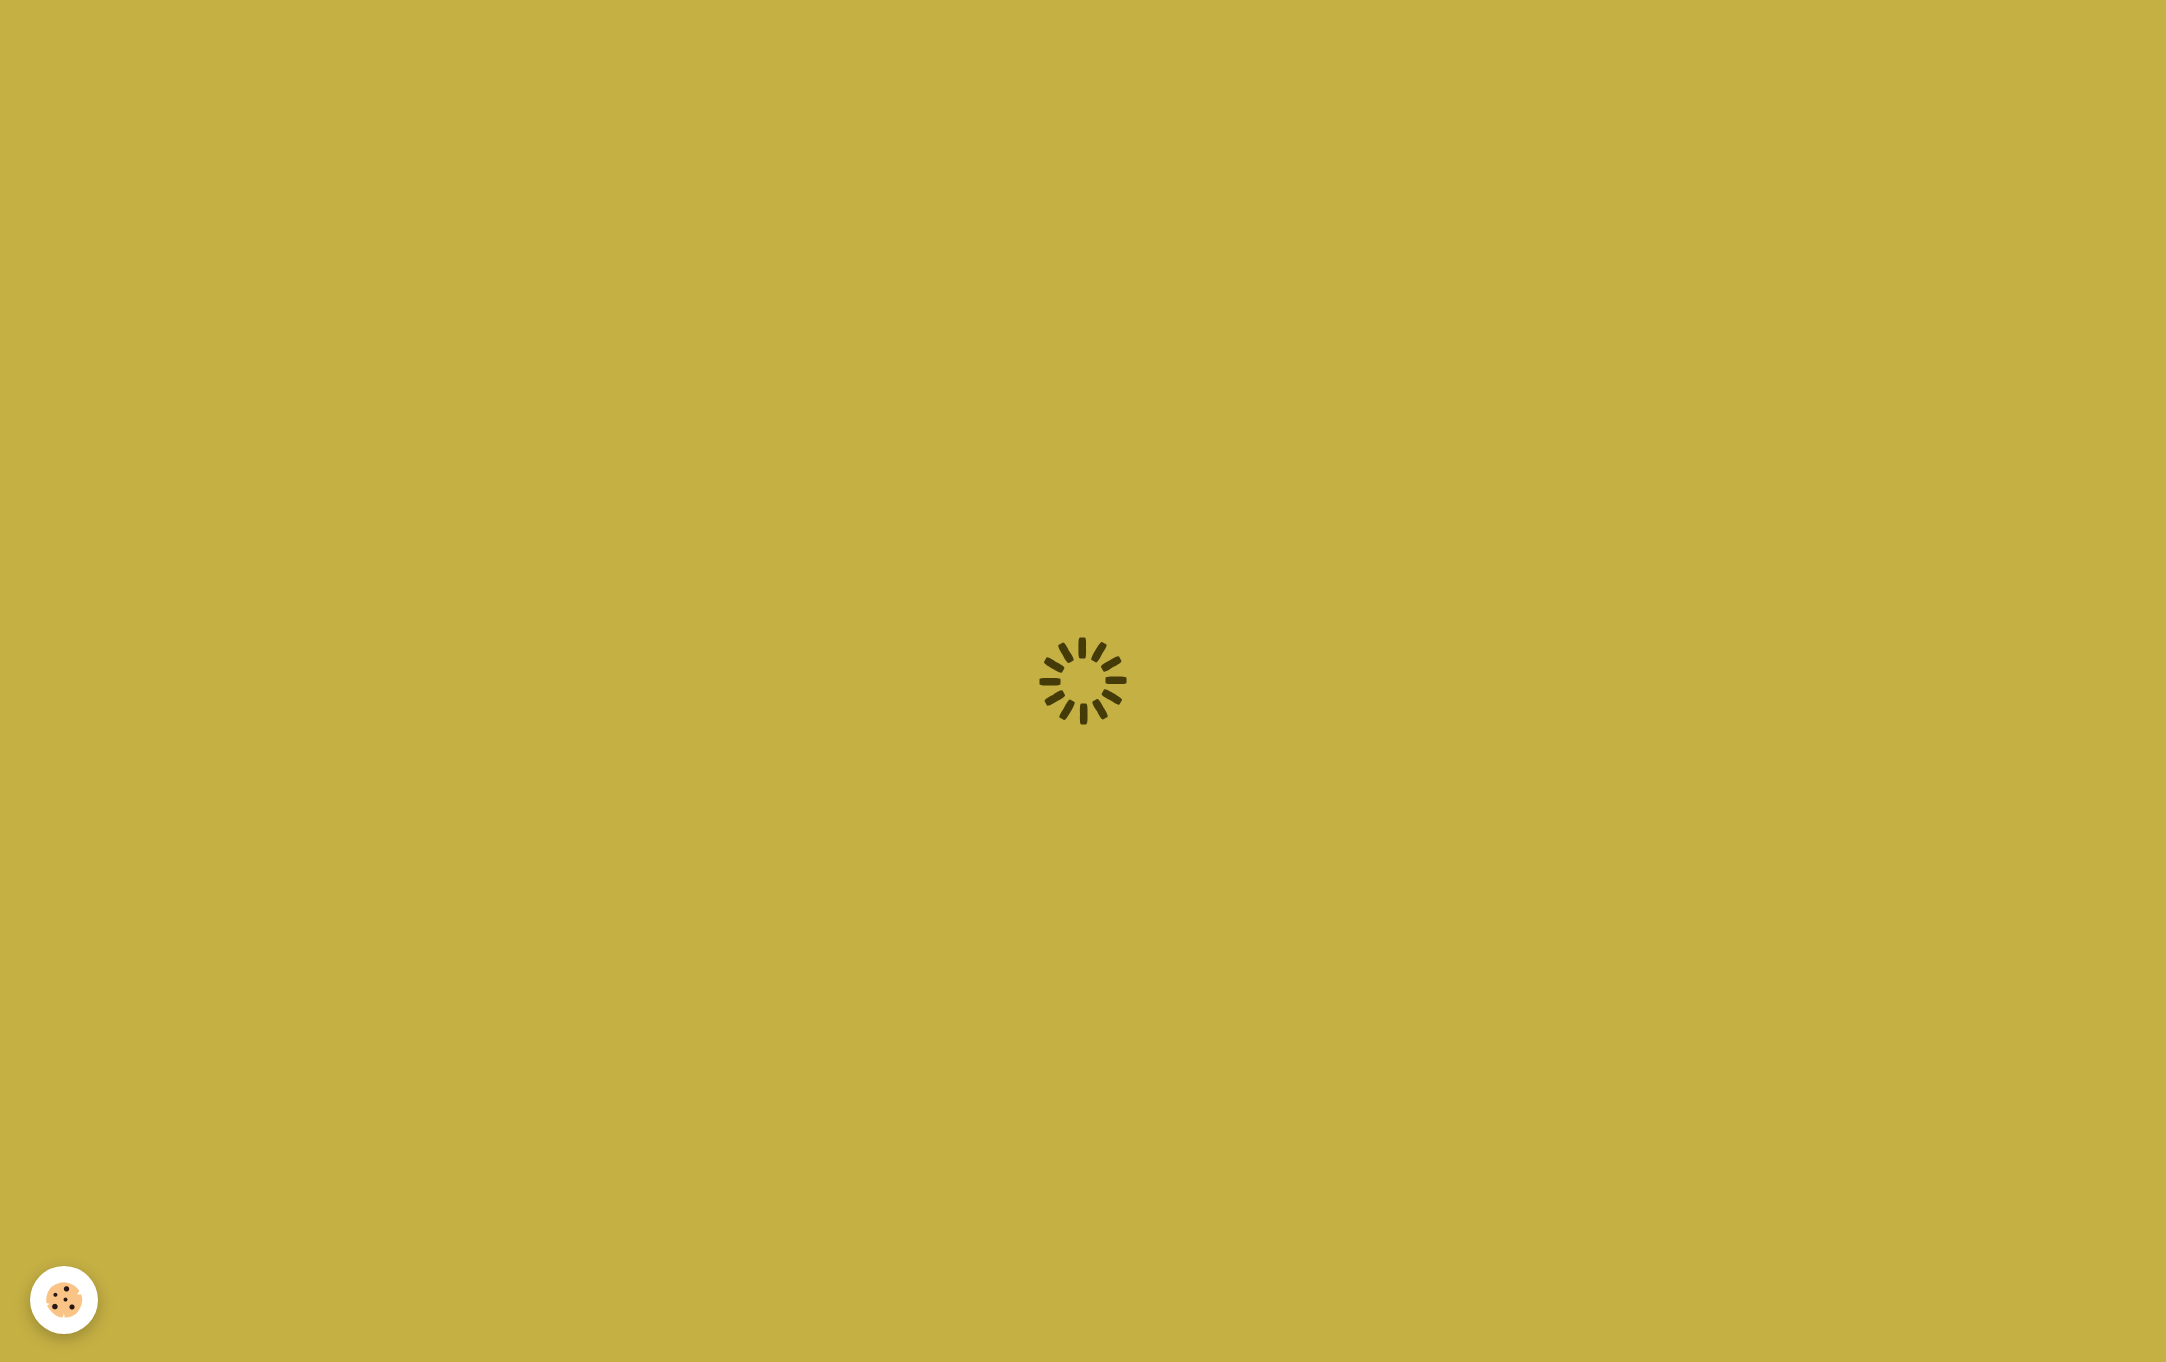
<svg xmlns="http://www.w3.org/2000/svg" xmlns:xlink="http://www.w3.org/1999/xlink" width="2166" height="1362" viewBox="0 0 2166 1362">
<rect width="100%" height="100%" fill="#c5b044"/>
<path fill="#443b09" d="M1080 637.5H1085C1086.5 638.5 1086 646.5 1086 648C1086 649.5 1086.5 657.5 1085 658.5H1080C1078 658.5 1078.5 649 1078.5 648C1078.5 647 1078 637.5 1080 637.5ZM1102 642L1106.5 644.5C1107.5 646 1103 652.5 1102 654C1101.5 655 1098 662.5 1096 662.5L1091.5 660C1090 659 1095 651 1095.5 650C1096 649.5 1100.5 641 1102 642Z"/>
<path fill="#443b09" d="M1119 656.5L1121.5 661C1121.5 663 1114.5 666.5 1113 667C1112 668 1105.5 672.5 1103.5 671.5L1101 667C1100 665 1108.5 661 1109.5 660.5C1110 660 1118 655 1119 656.5ZM1126.5 678V683C1125.5 684.5 1117.5 684 1116 684C1114.5 684 1106.5 684.5 1105.5 683V678C1105.5 676 1115 676.5 1116 676.5C1117 676.5 1126.5 676 1126.5 678ZM1122 700L1119.5 704.5C1118 705.5 1111.5 701 1110 700C1109 699.5 1101.5 696 1101.5 694L1104 689.5C1105 688 1113 693 1114 693.5C1114.5 694 1123 698.5 1122 700Z"/>
<path fill="#443b09" d="M1107.5 717L1103 719.5C1101 719.5 1097.5 712.5 1097 711C1096 710 1091.5 703.5 1092.5 701.5L1097 699C1099 698 1103 706.5 1103.5 707.5C1104 708 1109 716 1107.5 717ZM1086 724.5H1081C1079.5 723.5 1080 715.5 1080 714C1080 712.5 1079.5 704.5 1081 703.5H1086C1088 703.5 1087.5 713 1087.5 714C1087.5 715 1088 724.5 1086 724.5ZM1064 720L1059.5 717.5C1058.5 716 1063 709.5 1064 708C1064.5 707 1068 699.5 1070 699.5L1074.5 702C1076 703 1071 711 1070.5 712C1070 712.5 1065.5 721 1064 720Z"/>
<path fill="#443b09" d="M1047 705.5L1044.5 701C1044.5 699 1051.5 695.5 1053 695C1054 694 1060.5 689.5 1062.5 690.5L1065 695C1066 697 1057.5 701 1056.5 701.5C1056 702 1048 707 1047 705.5ZM1039.5 684V679C1040.5 677.5 1048.5 678 1050 678C1051.5 678 1059.5 677.5 1060.5 679V684C1060.5 686 1051 685.5 1050 685.5C1049 685.5 1039.5 686 1039.5 684ZM1044 662L1046.5 657.5C1048 656.5 1054.5 661 1056 662C1057 662.5 1064.5 666 1064.5 668L1062 672.5C1061 674 1053 669 1052 668.5C1051.5 668 1043 663.5 1044 662Z"/>
<path fill="#443b09" d="M1058.5 645L1063 642.5C1065 642.5 1068.5 649.5 1069 651C1070 652 1074.5 658.5 1073.5 660.5L1069 663C1067 664 1063 655.5 1062.5 654.5C1062 654 1057 646 1058.5 645Z"/>
<rect fill="#000000" fill-opacity="0.24" filter="blur(7.5px)" x="30" y="1271" width="68" height="67" rx="33.5"/>
<circle fill="#ffffff" cx="64" cy="1300" r="34"/>
<image xlink:href="image0.png" x="46" y="1282" width="37" height="36"/>
</svg>
